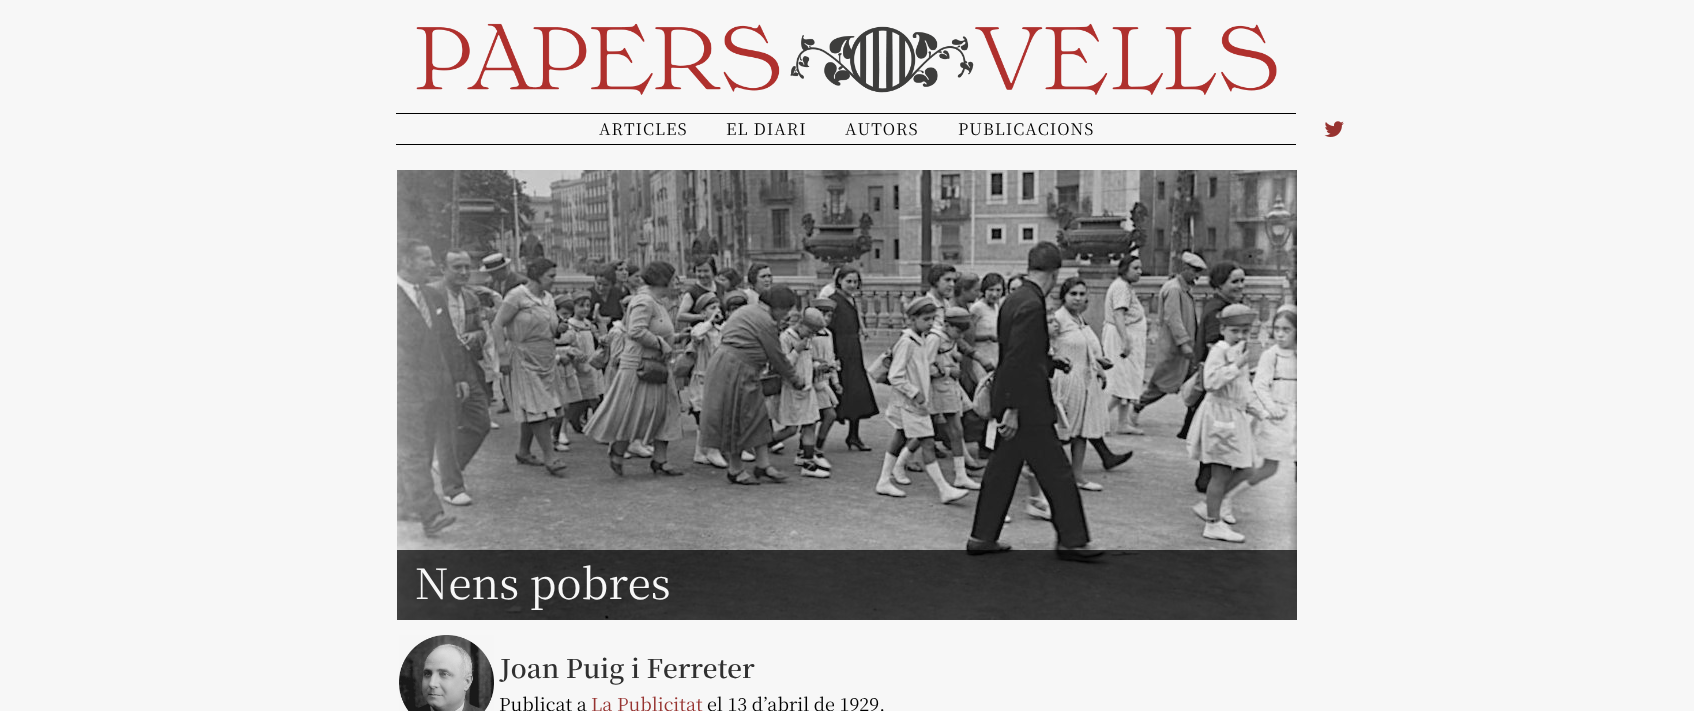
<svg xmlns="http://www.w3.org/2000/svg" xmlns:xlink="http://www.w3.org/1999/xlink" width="1694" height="711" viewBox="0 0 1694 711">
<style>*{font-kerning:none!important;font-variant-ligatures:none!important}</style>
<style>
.cls-1{font:16px Noto Serif KR;letter-spacing:1px;fill:#000000}
.cls-2{font:42px Noto Serif KR;fill:#f7f7f7}
.cls-3{font:600 26px Noto Serif KR;fill:#303030}
.cls-4{font:18px Noto Serif KR;fill:#000000}
.cls-5{font:18px Noto Serif KR;fill:#973330}
</style>
<rect width="100%" height="100%" fill="#f7f7f7"/>
<image xlink:href="image0.png" x="416" y="23" width="861" height="72"/>
<rect fill="#000000" x="396" y="113" width="900" height="1"/>
<rect fill="#000000" x="396" y="144" width="900" height="1"/>
<image xlink:href="image1.png" x="1324" y="121" width="20" height="16"/>
<image xlink:href="image2.png" x="397" y="170" width="900" height="450"/>
<rect fill="#000000" fill-opacity="0.7" x="397" y="550" width="900" height="70"/>
<image xlink:href="image3.png" x="399" y="635" width="95" height="76"/>
<text class="cls-1" x="599" y="135">ARTICLES</text>
<text class="cls-1" x="726" y="135">EL DIARI</text>
<text class="cls-1" x="845" y="135">AUTORS</text>
<text class="cls-1" x="958" y="135">PUBLICACIONS</text>
<text class="cls-2" x="415" y="599">Nens pobres</text>
<text class="cls-3" x="500" y="678">Joan Puig i Ferreter</text>
<text class="cls-4" x="499" y="711">Publicat a</text>
<text class="cls-5" x="591" y="711">La Publicitat</text>
<text class="cls-4" x="707" y="711">el 13 d’abril de 1929.</text>
</svg>
